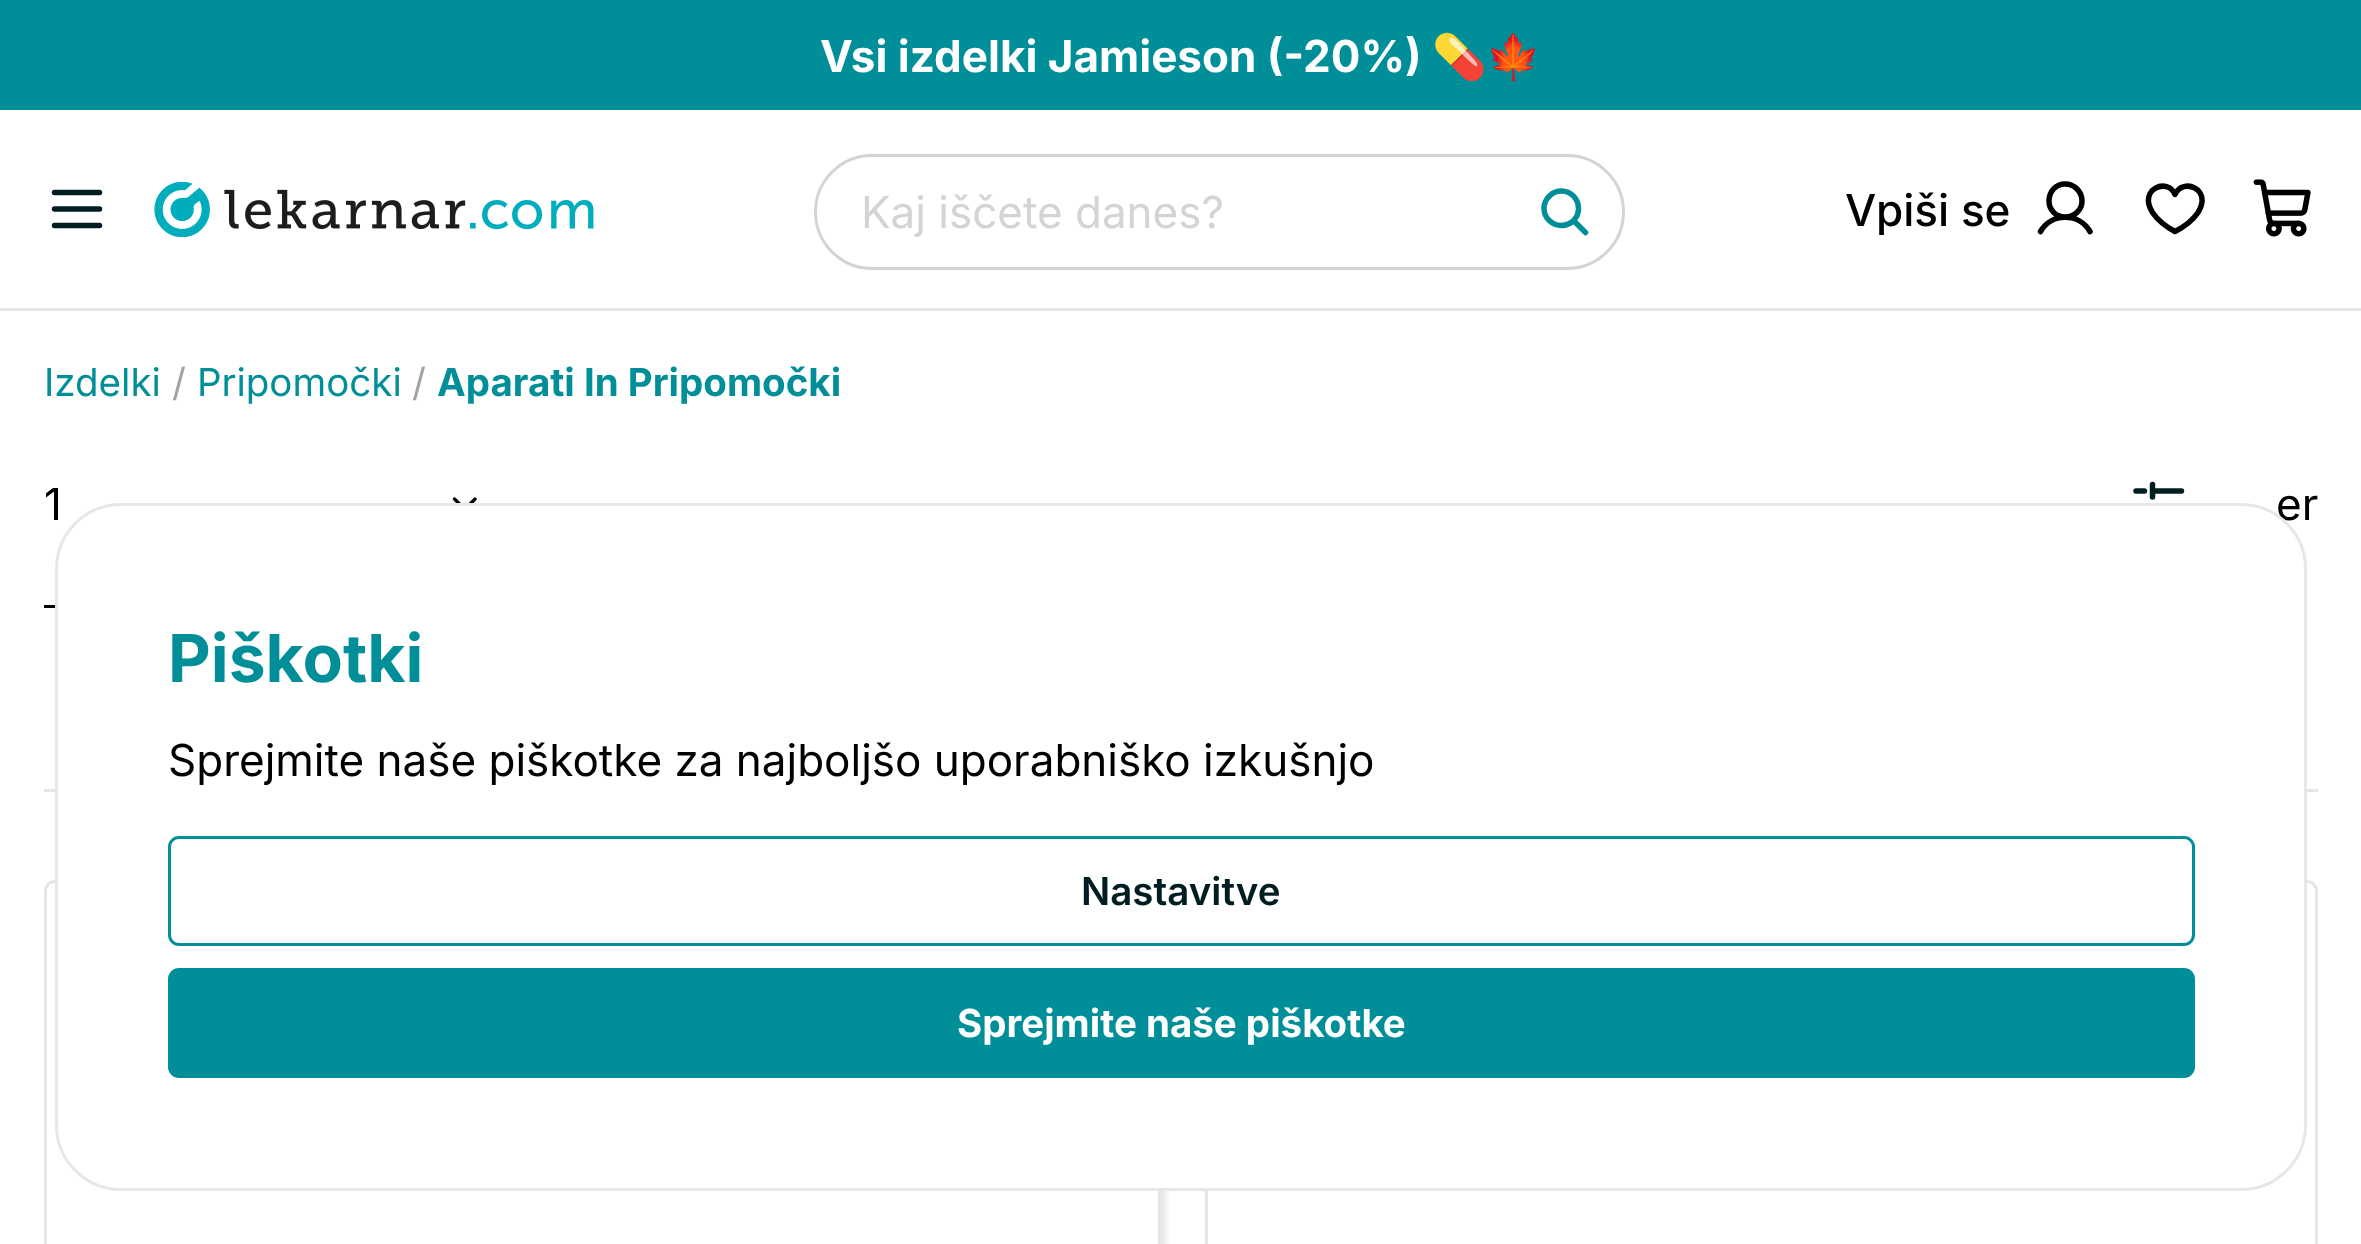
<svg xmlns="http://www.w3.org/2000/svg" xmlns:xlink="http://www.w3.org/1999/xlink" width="2361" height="1244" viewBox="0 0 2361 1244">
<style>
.cls-1{font:bold 44px Inter;fill:#ffffff}
.cls-2{font:bold 44px Noto Color Emoji;fill:#ffffff}
.cls-3{font:44px Inter;fill:#d4d4d4}
.cls-4{font:500 44px Inter;fill:#000000}
.cls-5{font:38.5px Inter;fill:#008f98}
.cls-6{font:38.5px Inter;fill:#a3a3a3}
.cls-7{font:bold 38.5px Inter;fill:#008f98}
.cls-8{font:44px Inter;fill:#000000}
.cls-9{font:bold 66px Inter;fill:#008f98}
.cls-10{font:600 38.5px Inter;fill:#001e21}
.cls-11{font:bold 38.5px Inter;fill:#ffffff}
</style>
<defs>
<clipPath id="clip1"><rect x="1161" y="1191" width="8" height="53"/></clipPath>
</defs>
<rect width="100%" height="100%" fill="#ffffff"/>
<rect fill="#008f98" x="0" y="0" width="2361" height="110"/>
<rect fill="#e5e5e5" x="0" y="308" width="2361" height="3"/>
<path fill="none" stroke="#001e21" stroke-width="5.5" stroke-linecap="round" stroke-linejoin="round" d="M54.5 209H99.5M54.5 192.5H99.5M54.5 225.5H99.5"/>
<image xlink:href="image0.png" x="154" y="182" width="440" height="55"/>
<rect fill="none" stroke="#d4d4d4" stroke-width="3" x="815.5" y="155.5" width="808" height="113" rx="56.5"/>
<path fill="none" stroke="#008f98" stroke-width="5.5" stroke-linecap="round" stroke-linejoin="round" d="M1561.5 225.5C1571 225.5 1578.5 218 1578.5 208.5C1578.5 199 1571 191 1561.5 191C1552 191 1544 199 1544 208.5C1544 218 1552 225.5 1561.5 225.5ZM1573.5 220.5L1585.5 232.5"/>
<path fill="none" stroke="#000000" stroke-width="5.5" stroke-linecap="round" stroke-linejoin="round" d="M2065 217C2074.5 217 2082 210 2082 201C2082 191.5 2074.5 184 2065 184C2056 184 2049 191.5 2049 201C2049 210 2056 217 2065 217ZM2040.5 231.5C2051.5 212.5 2079 212.5 2090 231.5"/>
<path fill="none" stroke="#000000" stroke-width="5.5" stroke-linecap="round" stroke-linejoin="round" d="M2175 231.5C2166.5 227 2158 220.5 2152.5 212.5C2137.5 189 2168 177 2175 194.5C2182.5 177 2213 189 2198 212.5C2192.5 220.5 2184 227 2175 231.5Z"/>
<image xlink:href="image1.png" x="2253" y="179" width="58" height="58"/>
<path fill="none" stroke="#000000" stroke-width="3.3" stroke-linecap="round" stroke-linejoin="round" d="M475 499L465 509.5L454.5 499"/>
<path fill="none" stroke="#001e21" stroke-width="5.5" stroke-linecap="round" stroke-linejoin="round" d="M2152.5 491H2181.5M2136 491H2144.5M2152.5 484.5V497"/>
<rect fill="#000000" x="44" y="605" width="11" height="3"/>
<rect fill="#e5e5e5" x="44" y="789" width="2274" height="3"/>
<g clip-path="url(#clip1)">
<rect fill="#000000" fill-opacity="0.1" filter="blur(3px)" x="50" y="886" width="1116" height="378" rx="11"/>
</g>
<rect fill="none" stroke="#e5e5e5" stroke-width="3" x="45.5" y="881.5" width="1114" height="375" rx="9.5"/>
<rect fill="none" stroke="#e5e5e5" stroke-width="3" x="1206.5" y="881.5" width="1110" height="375" rx="9.5"/>
<text class="cls-1" x="820" y="72">Vsi izdelki Jamieson (-20%)</text>
<text class="cls-2" x="1432" y="72">💊🍁</text>
<text class="cls-3" x="861" y="228">Kaj iščete danes?</text>
<text class="cls-4" x="1845" y="226">Vpiši se</text>
<text class="cls-5" x="44" y="396">Izdelki</text>
<text class="cls-6" x="172" y="396">/</text>
<text class="cls-5" x="197" y="396">Pripomočki</text>
<text class="cls-6" x="412" y="396">/</text>
<text class="cls-7" x="437" y="396">Aparati In Pripomočki</text>
<text class="cls-8" x="44" y="520">1</text>
<text class="cls-8" x="2276" y="520">er</text>
<rect fill="#ffffff" stroke="#e5e7eb" stroke-width="3" x="56.5" y="504.5" width="2249" height="685" rx="64.5"/>
<text class="cls-9" x="168" y="682">Piškotki</text>
<text class="cls-8" x="168" y="776">Sprejmite naše piškotke za najboljšo uporabniško izkušnjo</text>
<rect fill="none" stroke="#008f98" stroke-width="3" x="169.5" y="837.5" width="2024" height="107" rx="9.5"/>
<text class="cls-10" x="1081" y="905">Nastavitve</text>
<rect fill="#008f98" stroke="#008f98" stroke-width="3" x="169.5" y="969.5" width="2024" height="107" rx="9.5"/>
<text class="cls-11" x="957" y="1037">Sprejmite naše piškotke</text>
</svg>
